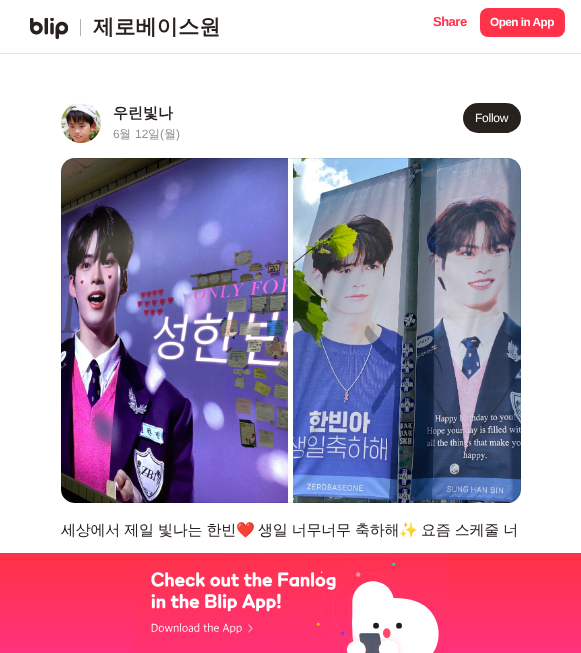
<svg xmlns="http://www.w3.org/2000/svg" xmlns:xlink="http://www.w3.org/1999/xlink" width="581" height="653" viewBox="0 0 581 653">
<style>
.cls-1{font:bold 21.25px WenQuanYi Zen Hei;fill:#28211e}
.cls-2{font:bold 13px Liberation Sans;letter-spacing:-0.5px;fill:#ff324b}
.cls-3{font:bold 11.75px Liberation Sans;letter-spacing:-0.5px;fill:#ffffff}
.cls-4{font:bold 15px WenQuanYi Zen Hei;fill:#28211e}
.cls-5{font:12px Liberation Sans;fill:#939191}
.cls-6{font:500 12px WenQuanYi Zen Hei;fill:#939191}
.cls-7{font:12px Liberation Sans;letter-spacing:-0.25px;fill:#ffffff}
.cls-8{font:500 15px WenQuanYi Zen Hei;letter-spacing:-0.25px;fill:#28211e}
.cls-9{font:15px Noto Color Emoji;letter-spacing:-0.25px;fill:#28211e}
</style>
<defs>
<linearGradient id="g1" gradientUnits="userSpaceOnUse" x1="291" y1="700" x2="291" y2="553"><stop offset="0" stop-color="#ff329b"/><stop offset="0.93" stop-color="#ff324b"/></linearGradient>
</defs>
<rect width="100%" height="100%" fill="#ffffff"/>
<rect fill="#e5e5e5" x="0" y="53" width="581" height="1"/>
<image xlink:href="image0.png" x="30" y="18" width="38" height="22"/>
<rect fill="#b2b2b2" x="80" y="19" width="1" height="17"/>
<rect fill="#ff324b" x="480" y="8" width="85" height="29" rx="8"/>
<image xlink:href="image1.png" x="61" y="103" width="40" height="40"/>
<rect fill="#28211e" x="463" y="103" width="58" height="30" rx="15"/>
<image xlink:href="image2.png" x="61" y="158" width="227" height="345"/>
<image xlink:href="image3.png" x="293" y="158" width="228" height="345"/>
<rect fill="none" stroke="#000000" stroke-opacity="0.08" x="61.5" y="158.5" width="459" height="344" rx="13.5"/>
<rect fill="url(#g1)" x="0" y="553" width="581" height="100"/>
<image xlink:href="image4.png" x="134" y="553" width="313" height="100"/>
<text class="cls-1" x="93" y="34">제로베이스원</text>
<text class="cls-2" x="433" y="26">Share</text>
<text class="cls-3" x="490" y="26">Open in App</text>
<text class="cls-4" x="113" y="118">우린빛나</text>
<text class="cls-5" x="113" y="138">6</text>
<text class="cls-6" x="119" y="138">월</text>
<text class="cls-5" x="135" y="138">12</text>
<text class="cls-6" x="148" y="138">일</text>
<text class="cls-5" x="160" y="138">(</text>
<text class="cls-6" x="164" y="138">월</text>
<text class="cls-5" x="176" y="138">)</text>
<text class="cls-7" x="475" y="122">Follow</text>
<text class="cls-8" x="61" y="535">세상에서 제일 빛나는 한빈</text>
<text class="cls-9" x="236" y="535">❤️</text>
<text class="cls-8" x="258" y="535">생일 너무너무 축하해</text>
<text class="cls-9" x="399" y="535">✨</text>
<text class="cls-8" x="421" y="535">요즘 스케줄 너</text>
</svg>
